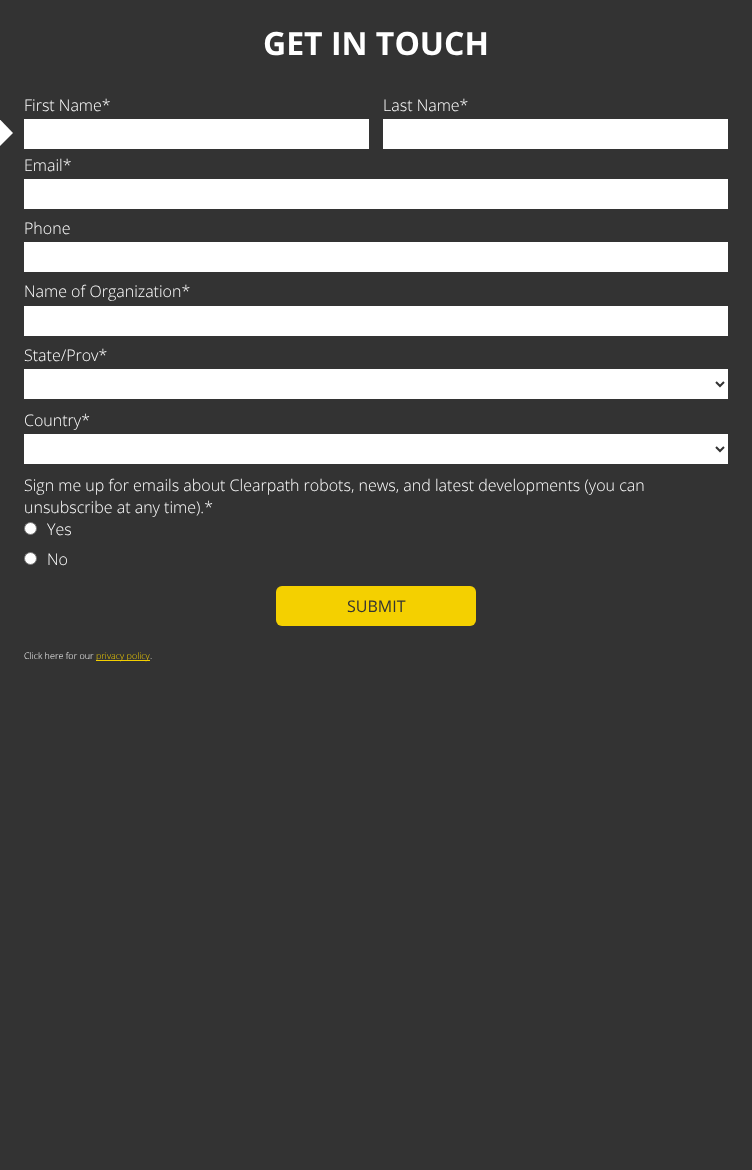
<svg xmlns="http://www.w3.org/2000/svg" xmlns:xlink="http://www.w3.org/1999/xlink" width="752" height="1170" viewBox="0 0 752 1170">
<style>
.cls-1{font:bold 32px Open Sans;fill:#ffffff}
.cls-2{font:300 16px Open Sans;fill:#ffffff}
.cls-3{font:16px Open Sans;fill:#333333}
.cls-4{font:300 9px Open Sans;fill:#ffffff}
.cls-5{font:300 9px Open Sans;fill:#f4d000}
</style>
<rect width="100%" height="100%" fill="#333333"/>
<path fill="#ffffff" d="M-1 118.5L13 133L-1 147L-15.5 133Z"/>
<rect fill="#ffffff" x="24" y="119" width="345" height="30"/>
<rect fill="#ffffff" x="383" y="119" width="345" height="30"/>
<rect fill="#ffffff" x="24" y="179" width="704" height="30"/>
<rect fill="#ffffff" x="24" y="242" width="704" height="30"/>
<rect fill="#ffffff" x="24" y="306" width="704" height="30"/>
<rect fill="#ffffff" x="24" y="369" width="704" height="30"/>
<path fill="none" stroke="#333333" stroke-width="2" d="M716 382L720 386L724 382"/>
<rect fill="#ffffff" x="24" y="434" width="704" height="30"/>
<path fill="none" stroke="#333333" stroke-width="2" d="M716 447L720 451L724 447"/>
<circle fill="#ffffff" stroke="#767676" cx="30.5" cy="528.5" r="6"/>
<circle fill="#ffffff" stroke="#767676" cx="30.5" cy="558.5" r="6"/>
<rect fill="#f4d000" x="276" y="586" width="200" height="40" rx="6"/>
<rect fill="#f4d000" x="96" y="660" width="54" height="1"/>
<text class="cls-1" x="263" y="55">GET IN TOUCH</text>
<text class="cls-2" x="24" y="111">First Name*</text>
<text class="cls-2" x="383" y="111">Last Name*</text>
<text class="cls-2" x="24" y="171">Email*</text>
<text class="cls-2" x="24" y="234">Phone</text>
<text class="cls-2" x="24" y="297">Name of Organization*</text>
<text class="cls-2" x="24" y="361">State/Prov*</text>
<text class="cls-2" x="24" y="426">Country*</text>
<text class="cls-2"><tspan x="24" y="491">Sign me up for emails about Clearpath robots, news, and latest developments (you can</tspan><tspan x="24" y="513">unsubscribe at any time).*</tspan></text>
<text class="cls-2"><tspan x="47" y="535">Yes</tspan><tspan x="47" y="565">No</tspan></text>
<text class="cls-3" x="347" y="612">SUBMIT</text>
<text class="cls-4" x="24" y="659">Click here for our</text>
<text class="cls-5" x="96" y="659">privacy policy</text>
<text class="cls-4" x="150" y="659">.</text>
</svg>
